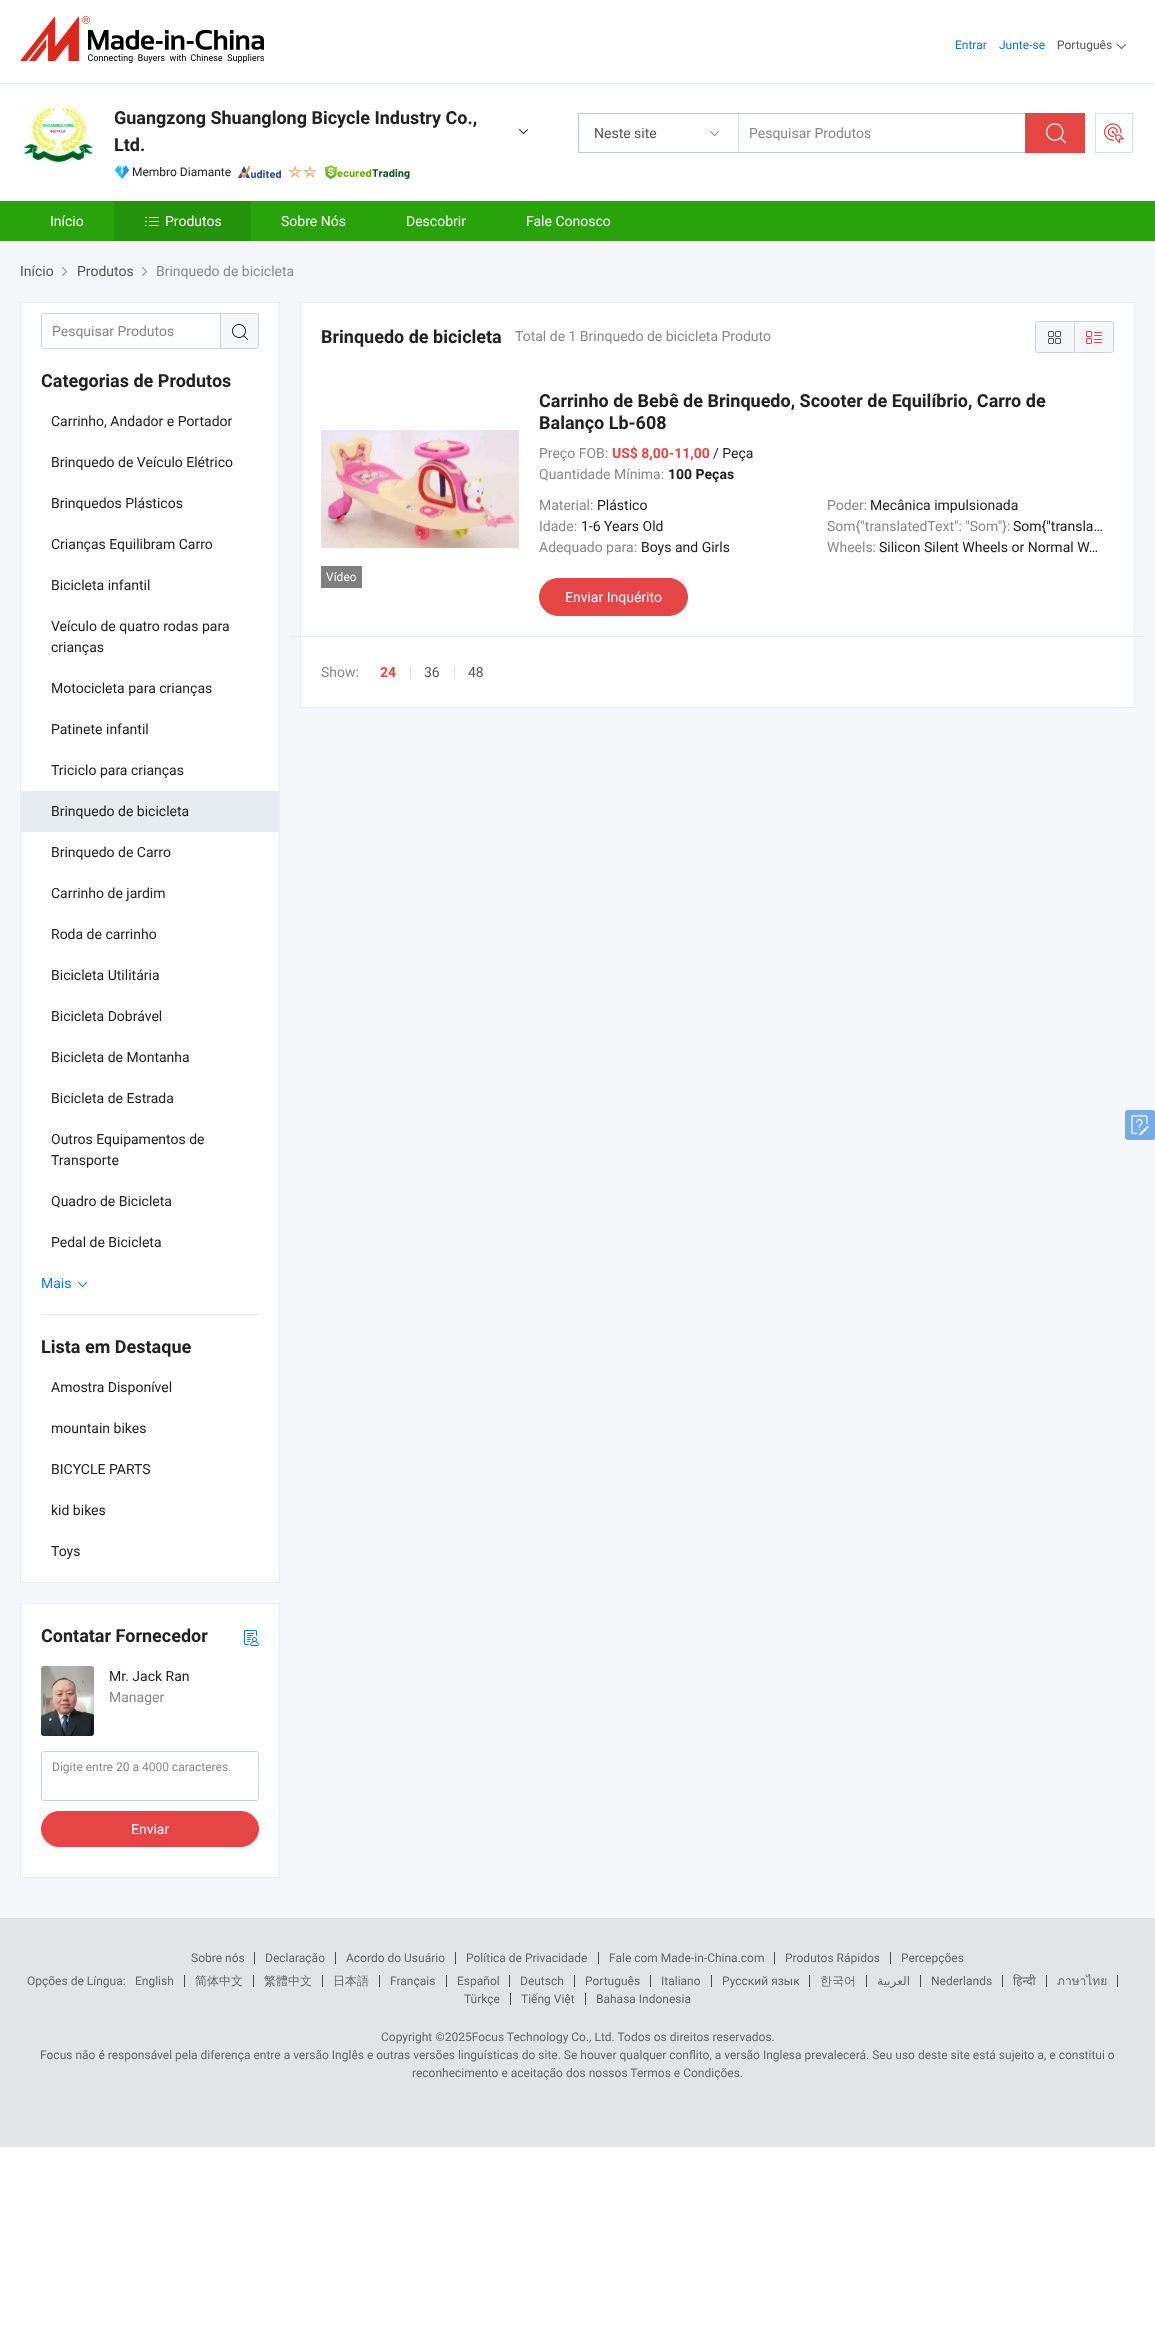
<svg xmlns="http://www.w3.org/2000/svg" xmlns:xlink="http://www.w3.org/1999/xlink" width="1155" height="2325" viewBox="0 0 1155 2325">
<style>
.cls-1{font:bold 18px Roboto;fill:#222222}
.cls-2{font:12px Roboto;fill:#222222}
.cls-3{font:12px Roboto;fill:#1470cc}
.cls-4{font:12px Roboto;fill:#555555}
.cls-5{font:14px Roboto;fill:#555555}
.cls-6{font:14px Roboto;fill:#888888}
.cls-7{font:14px Roboto;fill:#ffffff}
.cls-8{font:14px Roboto;fill:#222222}
.cls-9{font:14px Roboto;fill:#007dfa}
.cls-10{font:12px Roboto;fill:#888888}
.cls-11{font:12px Roboto;fill:#ffffff}
.cls-12{font:bold 14px Roboto;fill:#e64545}
.cls-13{font:bold 14px Roboto;fill:#222222}
.cls-14{font:12px Roboto;fill:#666666}
.cls-15{font:500 12px WenQuanYi Zen Hei;fill:#666666}
.cls-16{font:12px DejaVu Sans;direction:rtl;fill:#666666}
.cls-17{font:12px Noto Sans;fill:#666666}
.cls-18{font:12px Loma;fill:#666666}
</style>
<rect width="100%" height="100%" fill="#ffffff"/>
<rect fill="#e6ecf2" x="0" y="83" width="1155" height="1"/>
<image xlink:href="image0.png" x="20" y="104" width="76" height="60"/>
<image xlink:href="image1.png" x="519" y="129" width="9" height="5"/>
<image xlink:href="image2.png" x="115" y="165" width="14" height="14"/>
<image xlink:href="image3.png" x="238" y="166" width="43" height="12"/>
<image xlink:href="image4.png" x="288" y="165" width="14" height="14"/>
<image xlink:href="image4.png" x="303" y="165" width="14" height="14"/>
<image xlink:href="image5.png" x="325" y="165" width="85" height="14"/>
<image xlink:href="image6.png" x="20" y="16" width="244" height="47"/>
<image xlink:href="image7.png" x="1117" y="44" width="9" height="5"/>
<rect fill="none" stroke="#c2c7cc" x="578.5" y="113.5" width="506" height="39"/>
<rect fill="#dae0e5" x="738" y="114" width="1" height="38"/>
<image xlink:href="image8.png" x="710" y="131" width="9" height="5"/>
<rect fill="#e64545" x="1025" y="113" width="60" height="40"/>
<image xlink:href="image9.png" x="1046" y="123" width="20" height="21"/>
<rect fill="none" stroke="#dae0e5" x="1095.5" y="113.5" width="37" height="39"/>
<image xlink:href="image10.png" x="1104" y="123" width="20" height="21"/>
<rect fill="#28a30b" x="0" y="201" width="1155" height="40"/>
<rect fill="#24920a" x="114" y="201" width="137" height="40"/>
<image xlink:href="image11.png" x="145" y="217" width="14" height="9"/>
<rect fill="#f5f7fa" x="0" y="241" width="1155" height="1677"/>
<image xlink:href="image12.png" x="62" y="267" width="5" height="9"/>
<image xlink:href="image12.png" x="142" y="267" width="5" height="9"/>
<rect fill="#ffffff" stroke="#e9eef4" x="20.5" y="302.5" width="259" height="1280"/>
<path fill="none" stroke="#ced3d9" d="M44 313.5H220.5V348.5H44C42.5 348.5 41.5 347.5 41.5 346V316C41.5 314.5 42.5 313.5 44 313.5Z"/>
<path fill="#f5f7fa" d="M221 313H256C257.5 313 259 314.5 259 316V346C259 347.5 257.5 349 256 349H221Z"/>
<path fill="#ced3d9" fill-rule="evenodd" d="M221 313H256C257.5 313 259 314.5 259 316V346C259 347.5 257.5 349 256 349H221ZM221 314H256C257 314 258 315 258 316V346C258 347 257 348 256 348H221Z"/>
<image xlink:href="image13.png" x="232" y="324" width="16" height="16"/>
<rect fill="#e6ecf2" x="41" y="1314" width="218" height="1"/>
<rect fill="#e6ecf2" x="21" y="791" width="258" height="41"/>
<image xlink:href="image14.png" x="78" y="1282" width="9" height="5"/>
<rect fill="#ffffff" stroke="#e9eef4" x="20.5" y="1603.5" width="259" height="274"/>
<image xlink:href="image15.png" x="244" y="1630" width="15" height="16"/>
<image xlink:href="image16.png" x="41" y="1666" width="53" height="70"/>
<rect fill="none" stroke="#ced3d9" x="41.5" y="1751.5" width="217" height="49" rx="2.5"/>
<rect fill="#e64545" stroke="#e64545" x="41.5" y="1811.5" width="217" height="35" rx="17.5"/>
<rect fill="#ffffff" stroke="#e9eef4" x="300.5" y="302.5" width="834" height="405"/>
<path fill="#f5f7fa" stroke="#ced3d9" d="M1038 321.5H1074.5V352.5H1038C1036.5 352.5 1035.5 351.5 1035.5 350V324C1035.5 322.5 1036.5 321.5 1038 321.5Z"/>
<image xlink:href="image17.png" x="1048" y="331" width="13" height="13"/>
<path fill="#f5f7fa" stroke="#ced3d9" d="M1074.5 321.5H1111C1112.5 321.5 1113.5 322.5 1113.5 324V350C1113.5 351.5 1112.5 352.5 1111 352.5H1074.5Z"/>
<image xlink:href="image18.png" x="1086" y="331" width="16" height="13"/>
<rect fill="#e6ecf2" x="291" y="636" width="853" height="1"/>
<image xlink:href="image19.png" x="321" y="430" width="198" height="118"/>
<rect fill="#7f7f7f" x="321" y="566" width="41" height="22"/>
<rect fill="#e64545" stroke="#e64545" x="539.5" y="578.5" width="148" height="37" rx="18.5"/>
<rect fill="#dae0e6" x="410" y="666" width="1" height="14"/>
<rect fill="#dae0e6" x="454" y="666" width="1" height="14"/>
<rect fill="#73ace6" x="1125" y="1110" width="30" height="30" rx="3"/>
<image xlink:href="image20.png" x="1131" y="1115" width="18" height="21"/>
<rect fill="#e3e4e6" x="0" y="1919" width="1155" height="228"/>
<rect fill="#dae0e6" x="0" y="1918" width="1155" height="1"/>
<rect fill="#4c4c4c" x="254" y="1952" width="1" height="12"/>
<rect fill="#4c4c4c" x="335" y="1952" width="1" height="12"/>
<rect fill="#4c4c4c" x="455" y="1952" width="1" height="12"/>
<rect fill="#4c4c4c" x="598" y="1952" width="1" height="12"/>
<rect fill="#4c4c4c" x="774" y="1952" width="1" height="12"/>
<rect fill="#4c4c4c" x="890" y="1952" width="1" height="12"/>
<rect fill="#4c4c4c" x="184" y="1975" width="1" height="12"/>
<rect fill="#4c4c4c" x="253" y="1975" width="1" height="12"/>
<rect fill="#4c4c4c" x="322" y="1975" width="1" height="12"/>
<rect fill="#4c4c4c" x="379" y="1975" width="1" height="12"/>
<rect fill="#4c4c4c" x="446" y="1975" width="1" height="12"/>
<rect fill="#4c4c4c" x="509" y="1975" width="1" height="12"/>
<rect fill="#4c4c4c" x="574" y="1975" width="1" height="12"/>
<rect fill="#4c4c4c" x="650" y="1975" width="1" height="12"/>
<rect fill="#4c4c4c" x="711" y="1975" width="1" height="12"/>
<rect fill="#4c4c4c" x="809" y="1975" width="1" height="12"/>
<rect fill="#4c4c4c" x="866" y="1975" width="1" height="12"/>
<rect fill="#4c4c4c" x="920" y="1975" width="1" height="12"/>
<rect fill="#4c4c4c" x="1002" y="1975" width="1" height="12"/>
<rect fill="#4c4c4c" x="1046" y="1975" width="1" height="12"/>
<rect fill="#4c4c4c" x="1117" y="1975" width="1" height="12"/>
<rect fill="#4c4c4c" x="510" y="1993" width="1" height="12"/>
<rect fill="#4c4c4c" x="585" y="1993" width="1" height="12"/>
<text class="cls-1"><tspan x="114" y="124">Guangzong Shuanglong Bicycle Industry Co.,</tspan><tspan x="114" y="151">Ltd.</tspan></text>
<text class="cls-2" x="132" y="176">Membro Diamante</text>
<text class="cls-3" x="955" y="49">Entrar</text>
<text class="cls-3" x="999" y="49">Junte-se</text>
<text class="cls-4" x="1057" y="49">Português</text>
<text class="cls-5" x="594" y="138">Neste site</text>
<text class="cls-6" x="749" y="138">Pesquisar Produtos</text>
<text class="cls-7" x="50" y="226">Início</text>
<text class="cls-7" x="165" y="226">Produtos</text>
<text class="cls-7" x="281" y="226">Sobre Nós</text>
<text class="cls-7" x="406" y="226">Descobrir</text>
<text class="cls-7" x="526" y="226">Fale Conosco</text>
<text class="cls-5" x="20" y="276">Início</text>
<text class="cls-5" x="77" y="276">Produtos</text>
<text class="cls-6" x="156" y="276">Brinquedo de bicicleta</text>
<text class="cls-6" x="52" y="336">Pesquisar Produtos</text>
<text class="cls-1" x="41" y="387">Categorias de Produtos</text>
<text class="cls-8" x="51" y="426">Carrinho, Andador e Portador</text>
<text class="cls-8" x="51" y="467">Brinquedo de Veículo Elétrico</text>
<text class="cls-8" x="51" y="508">Brinquedos Plásticos</text>
<text class="cls-8" x="51" y="549">Crianças Equilibram Carro</text>
<text class="cls-8" x="51" y="590">Bicicleta infantil</text>
<text class="cls-8"><tspan x="51" y="631">Veículo de quatro rodas para</tspan><tspan x="51" y="652">crianças</tspan></text>
<text class="cls-8" x="51" y="693">Motocicleta para crianças</text>
<text class="cls-8" x="51" y="734">Patinete infantil</text>
<text class="cls-8" x="51" y="775">Triciclo para crianças</text>
<text class="cls-8" x="51" y="816">Brinquedo de bicicleta</text>
<text class="cls-8" x="51" y="857">Brinquedo de Carro</text>
<text class="cls-8" x="51" y="898">Carrinho de jardim</text>
<text class="cls-8" x="51" y="939">Roda de carrinho</text>
<text class="cls-8" x="51" y="980">Bicicleta Utilitária</text>
<text class="cls-8" x="51" y="1021">Bicicleta Dobrável</text>
<text class="cls-8" x="51" y="1062">Bicicleta de Montanha</text>
<text class="cls-8" x="51" y="1103">Bicicleta de Estrada</text>
<text class="cls-8"><tspan x="51" y="1144">Outros Equipamentos de</tspan><tspan x="51" y="1165">Transporte</tspan></text>
<text class="cls-8" x="51" y="1206">Quadro de Bicicleta</text>
<text class="cls-8" x="51" y="1247">Pedal de Bicicleta</text>
<text class="cls-9" x="41" y="1288">Mais</text>
<text class="cls-1" x="41" y="1353">Lista em Destaque</text>
<text class="cls-8" x="51" y="1392">Amostra Disponível</text>
<text class="cls-8" x="51" y="1433">mountain bikes</text>
<text class="cls-8" x="51" y="1474">BICYCLE PARTS</text>
<text class="cls-8" x="51" y="1515">kid bikes</text>
<text class="cls-8" x="51" y="1556">Toys</text>
<text class="cls-1" x="41" y="1642">Contatar Fornecedor</text>
<text class="cls-8" x="109" y="1681">Mr. Jack Ran</text>
<text class="cls-6" x="109" y="1702">Manager</text>
<text class="cls-10" x="52" y="1771">Digite entre 20 a 4000 caracteres.</text>
<text class="cls-7" x="131" y="1834">Enviar</text>
<text class="cls-1" x="321" y="343">Brinquedo de bicicleta</text>
<text class="cls-6" x="515" y="341">Total de 1 Brinquedo de bicicleta Produto</text>
<text class="cls-11" x="326" y="581">Vídeo</text>
<text class="cls-1"><tspan x="539" y="407">Carrinho de Bebê de Brinquedo, Scooter de Equilíbrio, Carro de</tspan><tspan x="539" y="429">Balanço Lb-608</tspan></text>
<text class="cls-6" x="539" y="458">Preço FOB:</text>
<text class="cls-12" x="612" y="458">US$ 8,00-11,00</text>
<text class="cls-8" x="713" y="458">/ Peça</text>
<text class="cls-6" x="539" y="479">Quantidade Mínima:</text>
<text class="cls-13" x="668" y="479">100 Peças</text>
<text class="cls-6" x="539" y="510">Material:</text>
<text class="cls-8" x="597" y="510">Plástico</text>
<text class="cls-6" x="827" y="510">Poder:</text>
<text class="cls-8" x="870" y="510">Mecânica impulsionada</text>
<text class="cls-6" x="539" y="531">Idade:</text>
<text class="cls-8" x="581" y="531">1-6 Years Old</text>
<text class="cls-6" x="827" y="531">Som{"translatedText": "Som"}:</text>
<text class="cls-8" x="1013" y="531">Som{"transla…</text>
<text class="cls-6" x="539" y="552">Adequado para:</text>
<text class="cls-8" x="641" y="552">Boys and Girls</text>
<text class="cls-6" x="827" y="552">Wheels:</text>
<text class="cls-8" x="879" y="552">Silicon Silent Wheels or Normal W…</text>
<text class="cls-7" x="565" y="602">Enviar Inquérito</text>
<text class="cls-6" x="321" y="677">Show:</text>
<text class="cls-12" x="380" y="677">24</text>
<text class="cls-5" x="424" y="677">36</text>
<text class="cls-5" x="468" y="677">48</text>
<text class="cls-14" x="191" y="1962">Sobre nós</text>
<text class="cls-14" x="265" y="1962">Declaração</text>
<text class="cls-14" x="346" y="1962">Acordo do Usuário</text>
<text class="cls-14" x="466" y="1962">Política de Privacidade</text>
<text class="cls-14" x="609" y="1962">Fale com Made-in-China.com</text>
<text class="cls-14" x="785" y="1962">Produtos Rápidos</text>
<text class="cls-14" x="901" y="1962">Percepções</text>
<text class="cls-14" x="27" y="1985">Opções de Língua:</text>
<text class="cls-14" x="135" y="1985">English</text>
<text class="cls-15" x="195" y="1985">简体中文</text>
<text class="cls-15" x="264" y="1985">繁體中文</text>
<text class="cls-15" x="333" y="1985">日本語</text>
<text class="cls-14" x="390" y="1985">Français</text>
<text class="cls-14" x="457" y="1985">Español</text>
<text class="cls-14" x="520" y="1985">Deutsch</text>
<text class="cls-14" x="585" y="1985">Português</text>
<text class="cls-14" x="661" y="1985">Italiano</text>
<text class="cls-14" x="722" y="1985">Русский язык</text>
<text class="cls-15" x="820" y="1985">한국어</text>
<text class="cls-16" x="910" y="1985">العربية</text>
<text class="cls-14" x="931" y="1985">Nederlands</text>
<text class="cls-17" x="1013" y="1985">हिन्दी</text>
<text class="cls-18" x="1057" y="1985">ภาษาไทย</text>
<text class="cls-14" x="464" y="2003">Türkçe</text>
<text class="cls-14" x="521" y="2003">Tiếng Việt</text>
<text class="cls-14" x="596" y="2003">Bahasa Indonesia</text>
<text class="cls-14" x="381" y="2041">Copyright ©2025Focus Technology Co., Ltd. Todos os direitos reservados.</text>
<text class="cls-14" x="40" y="2059">Focus não é responsável pela diferença entre a versão Inglês e outras versões linguísticas do site. Se houver qualquer conflito, a versão Inglesa prevalecerá. Seu uso deste site está sujeito a, e constitui o</text>
<text class="cls-14" x="412" y="2077">reconhecimento e aceitação dos nossos Termos e Condições.</text>
</svg>
